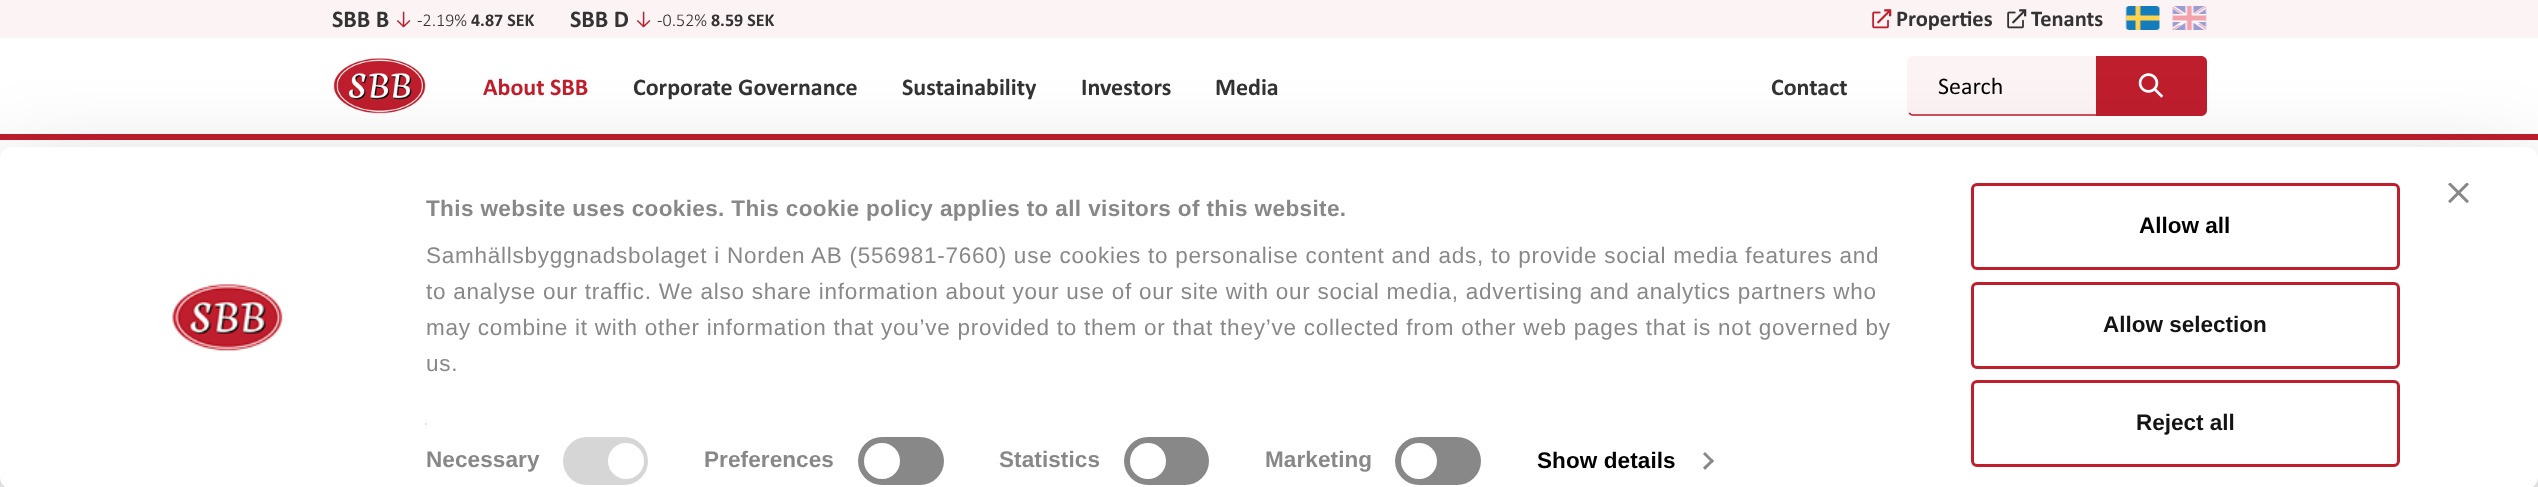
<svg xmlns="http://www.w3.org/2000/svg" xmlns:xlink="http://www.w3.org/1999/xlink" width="2538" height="487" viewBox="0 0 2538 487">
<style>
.cls-1{font:bold 24px Calibri;fill:#333333}
.cls-2{font:300 18px Calibri;fill:#333333}
.cls-3{font:bold 18px Calibri;fill:#333333}
.cls-4{font:bold 22.5px Calibri;fill:#333333}
.cls-5{font:bold 24px Calibri;fill:#bf1e2d}
.cls-6{font:24px Calibri;fill:#000000}
.cls-7{font:bold 22.5px Liberation Sans;letter-spacing:0.38px;fill:#888888}
.cls-8{font:22.5px Liberation Sans;letter-spacing:0.75px;fill:#888888}
.cls-9{font:bold 22.5px Liberation Sans;letter-spacing:0.1px;fill:#888888}
.cls-10{font:bold 22.5px Liberation Sans;letter-spacing:0.1px;fill:#000000}
.cls-11{font:bold 22.5px Liberation Sans;fill:#000000}
.cls-12{font:bold 22.5px Liberation Sans;fill:#141414}
</style>
<rect width="100%" height="100%" fill="#ffffff"/>
<rect fill="#bf1e2d" x="0" y="134" width="2538" height="6"/>
<rect fill="#fcf3f4" x="0" y="0" width="2538" height="38"/>
<image xlink:href="image0.png" x="397" y="11" width="14" height="17"/>
<image xlink:href="image0.png" x="637" y="11" width="14" height="17"/>
<image xlink:href="image1.png" x="1872" y="9" width="20" height="20"/>
<image xlink:href="image2.png" x="2007" y="9" width="20" height="20"/>
<image xlink:href="image3.png" x="2125" y="6" width="35" height="24"/>
<image xlink:href="image4.png" x="2172" y="6" width="35" height="25"/>
<image xlink:href="image5.png" x="333" y="58" width="93" height="56"/>
<rect fill="#fcf3f4" x="1907" y="56" width="300" height="60" rx="6"/>
<path fill="none" stroke="#bf1e2d" stroke-width="1.5" d="M2204 113C2203 114 2202 115 2200.5 115H1912.5C1911 115 1910 114 1909 113"/>
<path fill="#bf1e2d" d="M2096 56H2201C2204.5 56 2207 58.5 2207 62V110C2207 113.5 2204.5 116 2201 116H2096Z"/>
<image xlink:href="image6.png" x="2138" y="73" width="26" height="25"/>
<rect fill="#000000" fill-opacity="0.3" filter="blur(52.5px)" x="0" y="192" width="2538" height="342" rx="12"/>
<rect fill="#ffffff" x="0" y="147" width="2538" height="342" rx="12"/>
<image xlink:href="image7.png" x="2448" y="183" width="21" height="21"/>
<image xlink:href="image8.png" x="172" y="284" width="111" height="67"/>
<rect fill="#e5e5e5" x="425" y="423" width="2" height="2"/>
<rect fill="#d6d6d6" x="563" y="437" width="85" height="48" rx="24"/>
<circle fill="#ffffff" cx="626" cy="461" r="18"/>
<rect fill="#888888" x="858" y="437" width="86" height="48" rx="24"/>
<circle fill="#ffffff" cx="882" cy="461" r="18"/>
<rect fill="#888888" x="1124" y="437" width="85" height="48" rx="24"/>
<circle fill="#ffffff" cx="1148" cy="461" r="18"/>
<rect fill="#888888" x="1395" y="437" width="86" height="48" rx="24"/>
<circle fill="#ffffff" cx="1419" cy="461" r="18"/>
<path fill="#888888" d="M1705 452L1714 461L1712 463L1703 454Z"/>
<path fill="#888888" d="M1712 459L1714 461L1705 470L1703 467.5Z"/>
<rect fill="none" stroke="#bf1e2d" stroke-width="3" x="1972.5" y="184.5" width="426" height="84" rx="4.5"/>
<rect fill="none" stroke="#bf1e2d" stroke-width="3" x="1972.5" y="283.5" width="426" height="84" rx="4.5"/>
<rect fill="none" stroke="#bf1e2d" stroke-width="3" x="1972.5" y="381.5" width="426" height="84" rx="4.5"/>
<text class="cls-1" x="332" y="27">SBB B</text>
<text class="cls-2" x="417" y="26">-2.19%</text>
<text class="cls-3" x="471" y="26">4.87 SEK</text>
<text class="cls-1" x="570" y="27">SBB D</text>
<text class="cls-2" x="657" y="26">-0.52%</text>
<text class="cls-3" x="711" y="26">8.59 SEK</text>
<text class="cls-4" x="1896" y="26">Properties</text>
<text class="cls-4" x="2031" y="26">Tenants</text>
<text class="cls-5" x="483" y="95">About SBB</text>
<text class="cls-1" x="633" y="95">Corporate Governance</text>
<text class="cls-1" x="902" y="95">Sustainability</text>
<text class="cls-1" x="1081" y="95">Investors</text>
<text class="cls-1" x="1215" y="95">Media</text>
<text class="cls-1" x="1771" y="95">Contact</text>
<text class="cls-6" x="1938" y="94">Search</text>
<text class="cls-7" x="426" y="216">This website uses cookies. This cookie policy applies to all visitors of this website.</text>
<text class="cls-8"><tspan x="426" y="263">Samhällsbyggnadsbolaget i Norden AB (556981-7660) use cookies to personalise content and ads, to provide social media features and</tspan><tspan x="426" y="299">to analyse our traffic. We also share information about your use of our site with our social media, advertising and analytics partners who</tspan><tspan x="426" y="335">may combine it with other information that you’ve provided to them or that they’ve collected from other web pages that is not governed by</tspan><tspan x="426" y="371">us.</tspan></text>
<text class="cls-9" x="426" y="467">Necessary</text>
<text class="cls-9" x="704" y="467">Preferences</text>
<text class="cls-9" x="999" y="467">Statistics</text>
<text class="cls-9" x="1265" y="467">Marketing</text>
<text class="cls-10" x="1537" y="468">Show details</text>
<text class="cls-11" x="2139" y="233">Allow all</text>
<text class="cls-12" x="2103" y="332">Allow selection</text>
<text class="cls-12" x="2136" y="430">Reject all</text>
</svg>
